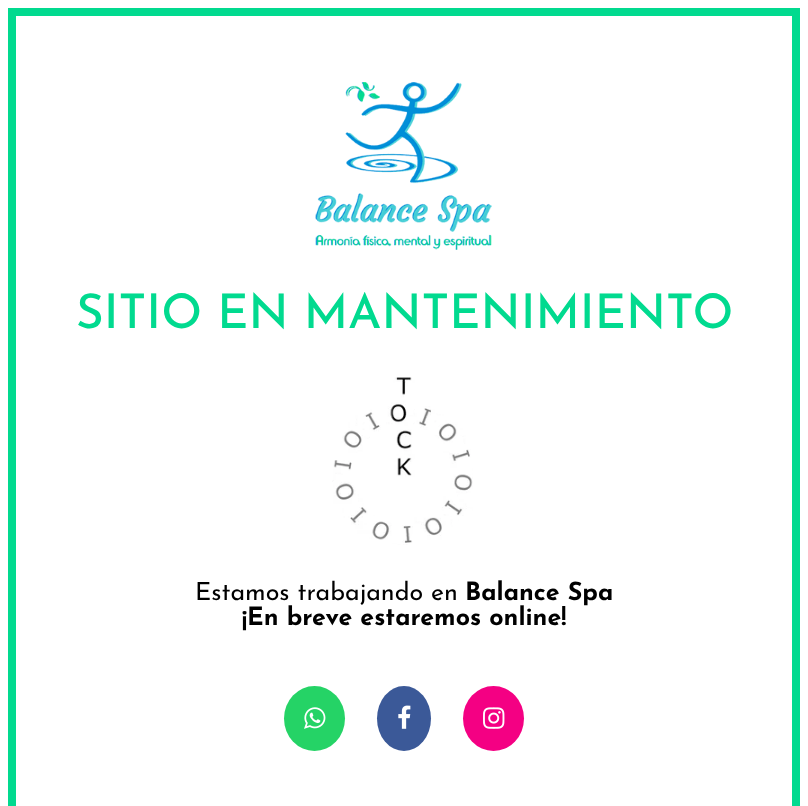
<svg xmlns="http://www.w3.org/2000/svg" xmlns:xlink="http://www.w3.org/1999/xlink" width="808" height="806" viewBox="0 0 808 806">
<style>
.cls-1{font:500 47.7px Josefin Sans;fill:#01da8f}
.cls-2{font:25px Josefin Sans;fill:#000000}
.cls-3{font:bold 25px Josefin Sans;fill:#000000}
</style>
<rect width="100%" height="100%" fill="#ffffff"/>
<rect fill="none" stroke="#01da8f" stroke-width="8" x="12" y="12" width="784" height="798"/>
<image xlink:href="image0.png" x="315" y="82" width="177" height="168"/>
<image xlink:href="image1.png" x="332" y="377" width="141" height="168"/>
<ellipse fill="#25d366" cx="314.5" cy="718.5" rx="30.5" ry="32.5"/>
<image xlink:href="image2.png" x="304" y="707" width="22" height="22"/>
<ellipse fill="#3b5998" cx="404" cy="718.5" rx="27" ry="32.5"/>
<image xlink:href="image3.png" x="398" y="705" width="13" height="24"/>
<ellipse fill="#f40083" cx="493.5" cy="718.5" rx="30.5" ry="32.5"/>
<image xlink:href="image4.png" x="483" y="707" width="22" height="22"/>
<text class="cls-1" x="76" y="328">SITIO EN MANTENIMIENTO</text>
<text class="cls-2" x="195" y="600">Estamos trabajando en</text>
<text class="cls-3" x="465" y="600">Balance Spa</text>
<text class="cls-3" x="242" y="625">¡En breve estaremos online!</text>
</svg>
